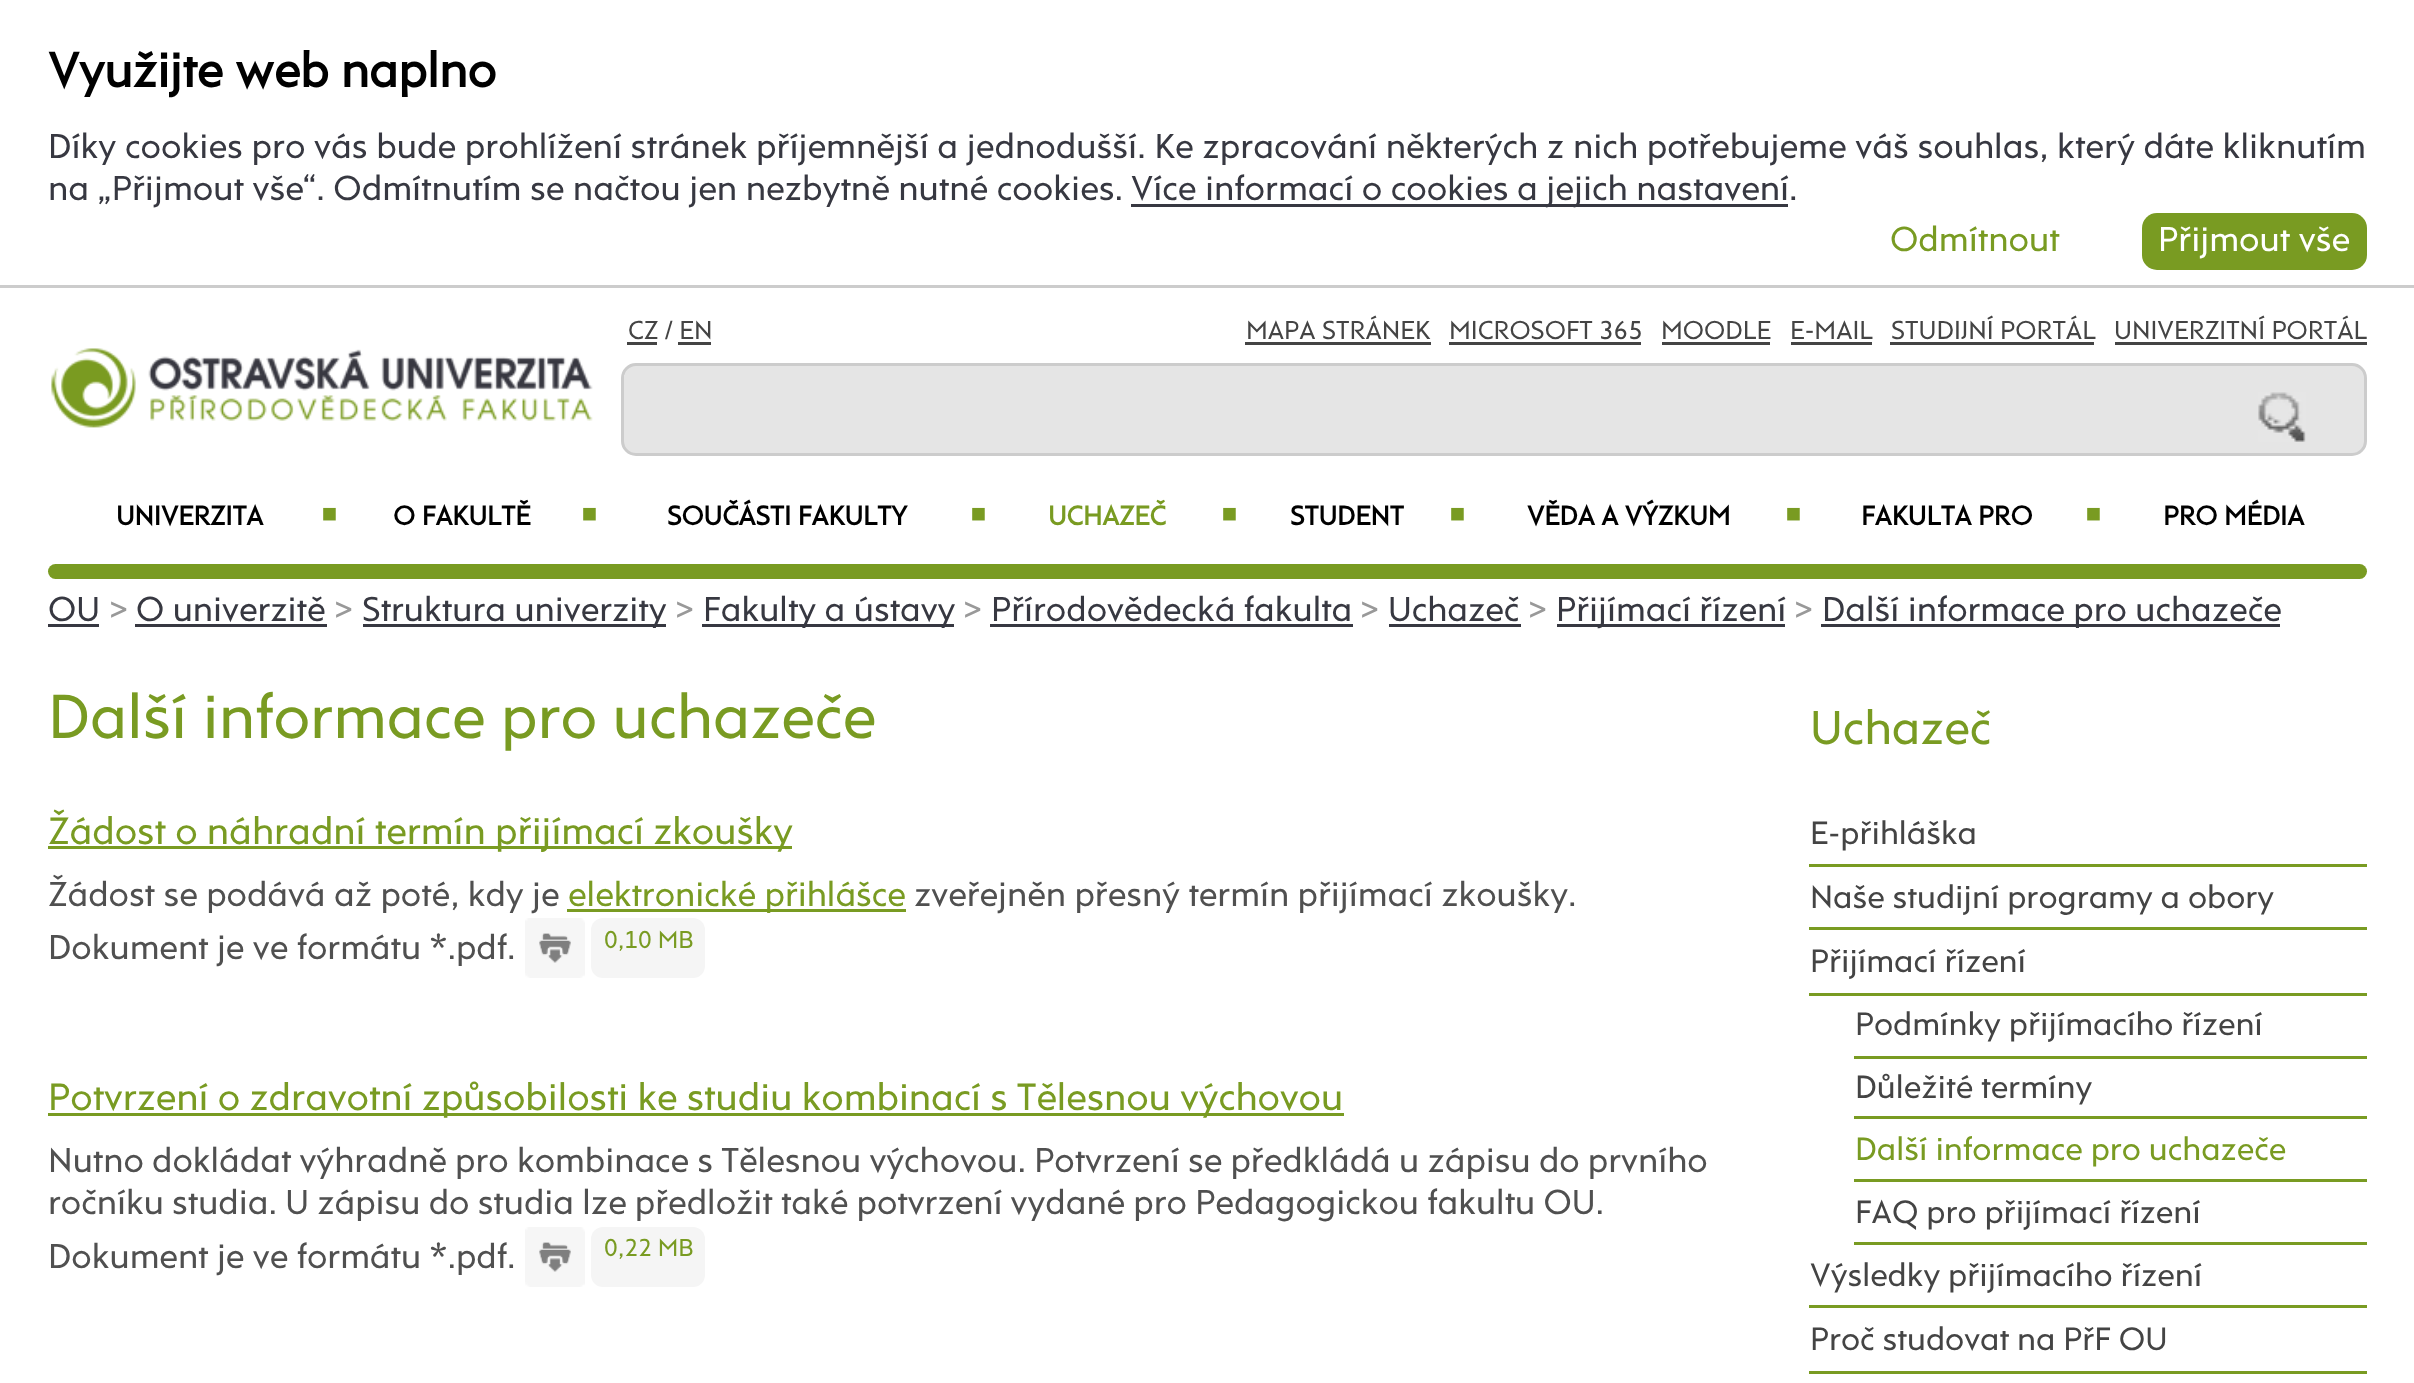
<svg xmlns="http://www.w3.org/2000/svg" xmlns:xlink="http://www.w3.org/1999/xlink" width="2414" height="1383" viewBox="0 0 2414 1383">
<style>
.cls-1{font:bold 49.5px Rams;fill:#000000}
.cls-2{font:35.37px Rams;fill:#373841}
.cls-3{font:35.37px Rams;fill:#799b22}
.cls-4{font:35.37px Rams;fill:#ffffff}
.cls-5{font:26.5px Rams;fill:#444444}
.cls-6{font:bold 27.5px Rams;fill:#000000}
.cls-7{font:bold 22px Rams;fill:#799b22}
.cls-8{font:bold 27.5px Rams;fill:#799b22}
.cls-9{font:35.2px Rams;fill:#373841}
.cls-10{font:35.2px Rams;fill:#999999}
.cls-11{font:63.4px Rams;fill:#799b22}
.cls-12{font:38.75px Rams;fill:#799b22}
.cls-13{font:35.2px Rams;fill:#505050}
.cls-14{font:35.2px Rams;fill:#799b22}
.cls-15{font:25px Rams;fill:#799b22}
.cls-16{font:48.5px Rams;fill:#799b22}
.cls-17{font:33px Rams;fill:#444444}
.cls-18{font:33px Rams;fill:#799b22}
</style>
<rect width="100%" height="100%" fill="#ffffff"/>
<rect fill="#cccccc" x="0" y="285" width="2414" height="3"/>
<rect fill="#373841" x="1131" y="204" width="657" height="3"/>
<rect fill="#799b22" x="2142" y="213" width="225" height="57" rx="15"/>
<rect fill="#444444" x="627" y="342" width="30" height="3"/>
<rect fill="#444444" x="678" y="342" width="33" height="3"/>
<rect fill="#444444" x="1245" y="342" width="186" height="3"/>
<rect fill="#444444" x="1449" y="342" width="192" height="3"/>
<rect fill="#444444" x="1662" y="342" width="108" height="3"/>
<rect fill="#444444" x="1791" y="342" width="81" height="3"/>
<rect fill="#444444" x="1890" y="342" width="204" height="3"/>
<rect fill="#444444" x="2115" y="342" width="252" height="3"/>
<rect fill="#e5e5e5" stroke="#cccccc" stroke-width="3" x="622.5" y="364.5" width="1743" height="90" rx="13.5"/>
<rect fill="#e5e5e5" x="624" y="375" width="1" height="2"/>
<image xlink:href="image0.png" x="2258" y="392" width="48" height="50"/>
<image xlink:href="image1.png" x="51" y="348" width="542" height="80"/>
<rect fill="#799b22" x="48" y="564" width="2319" height="15" rx="7.5"/>
<rect fill="#373841" x="48" y="624" width="51" height="3"/>
<rect fill="#373841" x="135" y="624" width="192" height="3"/>
<rect fill="#373841" x="363" y="624" width="303" height="3"/>
<rect fill="#373841" x="702" y="624" width="252" height="3"/>
<rect fill="#373841" x="990" y="624" width="363" height="3"/>
<rect fill="#373841" x="1389" y="624" width="132" height="3"/>
<rect fill="#373841" x="1557" y="624" width="228" height="3"/>
<rect fill="#373841" x="1821" y="624" width="459" height="3"/>
<rect fill="#799b22" x="48" y="846" width="744" height="3"/>
<rect fill="#799b22" x="567" y="909" width="339" height="3"/>
<image xlink:href="image2.png" x="525" y="918" width="60" height="60"/>
<rect fill="#f5f5f5" x="591" y="918" width="114" height="60" rx="12"/>
<rect fill="#799b22" x="48" y="1113" width="1296" height="3"/>
<image xlink:href="image2.png" x="525" y="1227" width="60" height="60"/>
<rect fill="#f5f5f5" x="591" y="1227" width="114" height="60" rx="12"/>
<rect fill="#799b22" x="1809" y="864" width="558" height="3"/>
<rect fill="#799b22" x="1809" y="927" width="558" height="3"/>
<rect fill="#799b22" x="1809" y="993" width="558" height="3"/>
<rect fill="#799b22" x="1854" y="1056" width="513" height="3"/>
<rect fill="#799b22" x="1854" y="1116" width="513" height="3"/>
<rect fill="#799b22" x="1854" y="1179" width="513" height="3"/>
<rect fill="#799b22" x="1854" y="1242" width="513" height="3"/>
<rect fill="#799b22" x="1809" y="1305" width="558" height="3"/>
<rect fill="#799b22" x="1809" y="1371" width="558" height="3"/>
<text class="cls-1" x="48" y="87">Využijte web naplno</text>
<text class="cls-2"><tspan x="48" y="158" word-spacing="0.2">Díky cookies pro vás bude prohlížení stránek příjemnější a jednodušší. Ke zpracování některých z nich potřebujeme váš souhlas, který dáte kliknutím</tspan><tspan x="48" y="200">na „Přijmout vše“. Odmítnutím se načtou jen nezbytně nutné cookies.</tspan></text>
<text class="cls-2" x="1131" y="200">Více informací o cookies a jejich nastavení</text>
<text class="cls-2" x="1789" y="200">.</text>
<text class="cls-3" x="1890" y="251">Odmítnout</text>
<text class="cls-4" x="2158" y="251">Přijmout vše</text>
<text class="cls-5" x="628" y="339">CZ / EN</text>
<text class="cls-5" x="1246" y="339">MAPA STRÁNEK</text>
<text class="cls-5" x="1449" y="339">MICROSOFT 365</text>
<text class="cls-5" x="1661" y="339">MOODLE</text>
<text class="cls-5" x="1790" y="339">E-MAIL</text>
<text class="cls-5" x="1891" y="339">STUDIJNÍ PORTÁL</text>
<text class="cls-5" x="2114" y="339">UNIVERZITNÍ PORTÁL</text>
<text class="cls-6" x="116" y="525">UNIVERZITA</text>
<text class="cls-7" x="321" y="522">■</text>
<text class="cls-6" x="393" y="525">O FAKULTĚ</text>
<text class="cls-7" x="581" y="522">■</text>
<text class="cls-6" x="667" y="525">SOUČÁSTI FAKULTY</text>
<text class="cls-7" x="970" y="522">■</text>
<text class="cls-8" x="1048" y="525">UCHAZEČ</text>
<text class="cls-7" x="1221" y="522">■</text>
<text class="cls-6" x="1290" y="525">STUDENT</text>
<text class="cls-7" x="1449" y="522">■</text>
<text class="cls-6" x="1527" y="525">VĚDA A VÝZKUM</text>
<text class="cls-7" x="1785" y="522">■</text>
<text class="cls-6" x="1861" y="525">FAKULTA PRO</text>
<text class="cls-7" x="2085" y="522">■</text>
<text class="cls-6" x="2163" y="525">PRO MÉDIA</text>
<text class="cls-9" x="48" y="621">OU</text>
<text class="cls-10" x="109" y="621">&gt;</text>
<text class="cls-9" x="136" y="621">O univerzitě</text>
<text class="cls-10" x="334" y="621">&gt;</text>
<text class="cls-9" x="362" y="621">Struktura univerzity</text>
<text class="cls-10" x="675" y="621">&gt;</text>
<text class="cls-9" x="703" y="621">Fakulty a ústavy</text>
<text class="cls-10" x="963" y="621">&gt;</text>
<text class="cls-9" x="991" y="621">Přírodovědecká fakulta</text>
<text class="cls-10" x="1360" y="621">&gt;</text>
<text class="cls-9" x="1388" y="621">Uchazeč</text>
<text class="cls-10" x="1528" y="621">&gt;</text>
<text class="cls-9" x="1556" y="621">Přijímací řízení</text>
<text class="cls-10" x="1794" y="621">&gt;</text>
<text class="cls-9" x="1822" y="621">Další informace pro uchazeče</text>
<text class="cls-11" x="48" y="738">Další informace pro uchazeče</text>
<text class="cls-12" x="48" y="844">Žádost o náhradní termín přijímací zkoušky</text>
<text class="cls-13" x="48" y="906">Žádost se podává až poté, kdy je</text>
<text class="cls-14" x="568" y="906">elektronické přihlášce</text>
<text class="cls-13" x="914" y="906">zveřejněn přesný termín přijímací zkoušky.</text>
<text class="cls-13" x="48" y="959">Dokument je ve formátu *.pdf.</text>
<text class="cls-15" x="604" y="948">0,10 MB</text>
<text class="cls-12" x="48" y="1110">Potvrzení o zdravotní způsobilosti ke studiu kombinací s Tělesnou výchovou</text>
<text class="cls-13"><tspan x="48" y="1172" word-spacing="-0.25">Nutno dokládat výhradně pro kombinace s Tělesnou výchovou. Potvrzení se předkládá u zápisu do prvního</tspan><tspan x="48" y="1214" word-spacing="-0.25">ročníku studia. U zápisu do studia lze předložit také potvrzení vydané pro Pedagogickou fakultu OU.</tspan><tspan x="48" y="1268">Dokument je ve formátu *.pdf.</tspan></text>
<text class="cls-15" x="604" y="1256">0,22 MB</text>
<text class="cls-16" x="1810" y="744">Uchazeč</text>
<text class="cls-17"><tspan x="1810" y="844">E-přihláška</tspan><tspan x="1810" y="908">Naše studijní programy a obory</tspan><tspan x="1810" y="972">Přijímací řízení</tspan></text>
<text class="cls-17"><tspan x="1855" y="1035">Podmínky přijímacího řízení</tspan><tspan x="1855" y="1098">Důležité termíny</tspan></text>
<text class="cls-18" x="1855" y="1160">Další informace pro uchazeče</text>
<text class="cls-17" x="1855" y="1223">FAQ pro přijímací řízení</text>
<text class="cls-17"><tspan x="1810" y="1286">Výsledky přijímacího řízení</tspan><tspan x="1810" y="1350">Proč studovat na PřF OU</tspan></text>
</svg>
